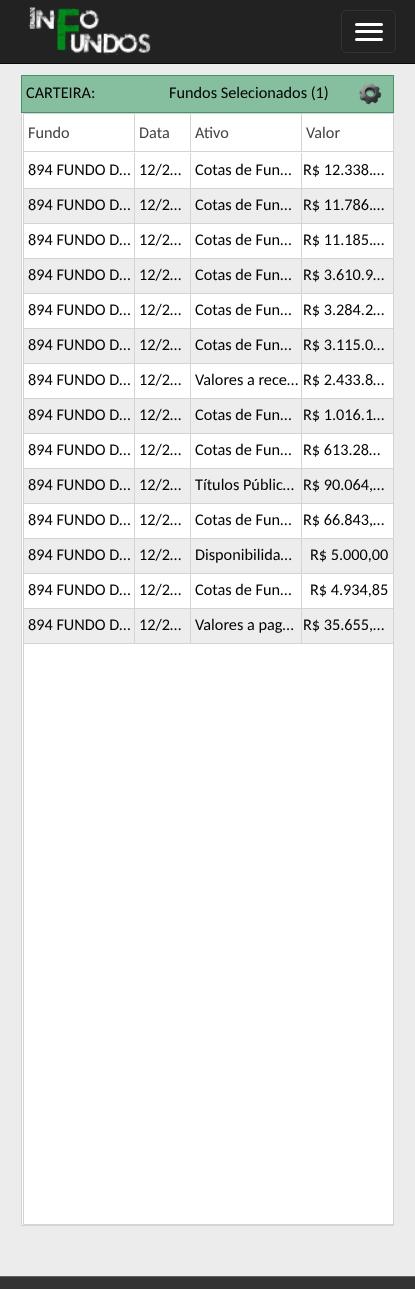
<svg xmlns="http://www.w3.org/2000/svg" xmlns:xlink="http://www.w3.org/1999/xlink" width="415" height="1289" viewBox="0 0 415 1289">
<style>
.cls-1{font:16.25px Carlito;fill:#000000}
.cls-2{font:16.25px Carlito;fill:#444444}
</style>
<defs>
<clipPath id="clip1"><rect x="23" y="113" width="370" height="1112"/></clipPath>
</defs>
<rect width="100%" height="100%" fill="#ececec"/>
<rect fill="#222222" x="0" y="0" width="415" height="63"/>
<rect fill="#080808" x="0" y="63" width="415" height="1"/>
<image xlink:href="image0.png" x="28" y="7" width="123" height="48"/>
<rect fill="none" stroke="#333333" x="341.5" y="10.5" width="54" height="42" rx="4.5"/>
<rect fill="#ffffff" x="355" y="23" width="28" height="3" rx="1.5"/>
<rect fill="#ffffff" x="355" y="30" width="28" height="3" rx="1.5"/>
<rect fill="#ffffff" x="355" y="38" width="28" height="3" rx="1.5"/>
<rect fill="#86bfa0" stroke="#429366" x="21.5" y="75.5" width="372" height="37"/>
<image xlink:href="image1.png" x="359" y="83" width="23" height="22"/>
<rect fill="#ffffff" x="22" y="113" width="371" height="1112"/>
<rect fill="#d4d4d4" x="393" y="113" width="1" height="1113"/>
<rect fill="#d4d4d4" x="21" y="1225" width="373" height="1"/>
<rect fill="#d4d4d4" x="21" y="113" width="1" height="1113"/>
<g clip-path="url(#clip1)">
<rect fill="none" stroke="#d4d4d4" x="23.5" y="113.5" width="371" height="1111"/>
</g>
<rect fill="#d4d4d4" x="24" y="151" width="369" height="1"/>
<rect fill="#d4d4d4" x="134" y="114" width="1" height="37"/>
<rect fill="#d4d4d4" x="190" y="114" width="1" height="37"/>
<rect fill="#d4d4d4" x="301" y="114" width="1" height="37"/>
<rect fill="#d4d4d4" x="301" y="643" width="92" height="1"/>
<rect fill="#d4d4d4" x="301" y="608" width="1" height="36"/>
<rect fill="#d4d4d4" x="301" y="608" width="92" height="1"/>
<rect fill="#d4d4d4" x="301" y="573" width="1" height="36"/>
<rect fill="#d4d4d4" x="301" y="573" width="92" height="1"/>
<rect fill="#d4d4d4" x="301" y="538" width="1" height="36"/>
<rect fill="#d4d4d4" x="301" y="538" width="92" height="1"/>
<rect fill="#d4d4d4" x="301" y="503" width="1" height="36"/>
<rect fill="#d4d4d4" x="301" y="503" width="92" height="1"/>
<rect fill="#d4d4d4" x="301" y="468" width="1" height="36"/>
<rect fill="#d4d4d4" x="301" y="468" width="92" height="1"/>
<rect fill="#d4d4d4" x="301" y="433" width="1" height="36"/>
<rect fill="#d4d4d4" x="301" y="433" width="92" height="1"/>
<rect fill="#d4d4d4" x="301" y="398" width="1" height="36"/>
<rect fill="#d4d4d4" x="301" y="398" width="92" height="1"/>
<rect fill="#d4d4d4" x="301" y="363" width="1" height="36"/>
<rect fill="#d4d4d4" x="301" y="363" width="92" height="1"/>
<rect fill="#d4d4d4" x="301" y="328" width="1" height="36"/>
<rect fill="#d4d4d4" x="301" y="328" width="92" height="1"/>
<rect fill="#d4d4d4" x="301" y="293" width="1" height="36"/>
<rect fill="#d4d4d4" x="301" y="293" width="92" height="1"/>
<rect fill="#d4d4d4" x="301" y="258" width="1" height="36"/>
<rect fill="#d4d4d4" x="301" y="258" width="92" height="1"/>
<rect fill="#d4d4d4" x="301" y="223" width="1" height="36"/>
<rect fill="#d4d4d4" x="301" y="223" width="92" height="1"/>
<rect fill="#d4d4d4" x="301" y="188" width="1" height="36"/>
<rect fill="#d4d4d4" x="301" y="188" width="92" height="1"/>
<rect fill="#d4d4d4" x="301" y="153" width="1" height="36"/>
<rect fill="#d4d4d4" x="190" y="643" width="113" height="1"/>
<rect fill="#d4d4d4" x="190" y="608" width="1" height="36"/>
<rect fill="#d4d4d4" x="190" y="608" width="113" height="1"/>
<rect fill="#d4d4d4" x="190" y="573" width="1" height="36"/>
<rect fill="#d4d4d4" x="190" y="573" width="113" height="1"/>
<rect fill="#d4d4d4" x="190" y="538" width="1" height="36"/>
<rect fill="#d4d4d4" x="190" y="538" width="113" height="1"/>
<rect fill="#d4d4d4" x="190" y="503" width="1" height="36"/>
<rect fill="#d4d4d4" x="190" y="503" width="113" height="1"/>
<rect fill="#d4d4d4" x="190" y="468" width="1" height="36"/>
<rect fill="#d4d4d4" x="190" y="468" width="113" height="1"/>
<rect fill="#d4d4d4" x="190" y="433" width="1" height="36"/>
<rect fill="#d4d4d4" x="190" y="433" width="113" height="1"/>
<rect fill="#d4d4d4" x="190" y="398" width="1" height="36"/>
<rect fill="#d4d4d4" x="190" y="398" width="113" height="1"/>
<rect fill="#d4d4d4" x="190" y="363" width="1" height="36"/>
<rect fill="#d4d4d4" x="190" y="363" width="113" height="1"/>
<rect fill="#d4d4d4" x="190" y="328" width="1" height="36"/>
<rect fill="#d4d4d4" x="190" y="328" width="113" height="1"/>
<rect fill="#d4d4d4" x="190" y="293" width="1" height="36"/>
<rect fill="#d4d4d4" x="190" y="293" width="113" height="1"/>
<rect fill="#d4d4d4" x="190" y="258" width="1" height="36"/>
<rect fill="#d4d4d4" x="190" y="258" width="113" height="1"/>
<rect fill="#d4d4d4" x="190" y="223" width="1" height="36"/>
<rect fill="#d4d4d4" x="190" y="223" width="113" height="1"/>
<rect fill="#d4d4d4" x="190" y="188" width="1" height="36"/>
<rect fill="#d4d4d4" x="190" y="188" width="113" height="1"/>
<rect fill="#d4d4d4" x="190" y="153" width="1" height="36"/>
<rect fill="#d4d4d4" x="134" y="643" width="57" height="1"/>
<rect fill="#d4d4d4" x="134" y="608" width="1" height="36"/>
<rect fill="#d4d4d4" x="134" y="608" width="57" height="1"/>
<rect fill="#d4d4d4" x="134" y="573" width="1" height="36"/>
<rect fill="#d4d4d4" x="134" y="573" width="57" height="1"/>
<rect fill="#d4d4d4" x="134" y="538" width="1" height="36"/>
<rect fill="#d4d4d4" x="134" y="538" width="57" height="1"/>
<rect fill="#d4d4d4" x="134" y="503" width="1" height="36"/>
<rect fill="#d4d4d4" x="134" y="503" width="57" height="1"/>
<rect fill="#d4d4d4" x="134" y="468" width="1" height="36"/>
<rect fill="#d4d4d4" x="134" y="468" width="57" height="1"/>
<rect fill="#d4d4d4" x="134" y="433" width="1" height="36"/>
<rect fill="#d4d4d4" x="134" y="433" width="57" height="1"/>
<rect fill="#d4d4d4" x="134" y="398" width="1" height="36"/>
<rect fill="#d4d4d4" x="134" y="398" width="57" height="1"/>
<rect fill="#d4d4d4" x="134" y="363" width="1" height="36"/>
<rect fill="#d4d4d4" x="134" y="363" width="57" height="1"/>
<rect fill="#d4d4d4" x="134" y="328" width="1" height="36"/>
<rect fill="#d4d4d4" x="134" y="328" width="57" height="1"/>
<rect fill="#d4d4d4" x="134" y="293" width="1" height="36"/>
<rect fill="#d4d4d4" x="134" y="293" width="57" height="1"/>
<rect fill="#d4d4d4" x="134" y="258" width="1" height="36"/>
<rect fill="#d4d4d4" x="134" y="258" width="57" height="1"/>
<rect fill="#d4d4d4" x="134" y="223" width="1" height="36"/>
<rect fill="#d4d4d4" x="134" y="223" width="57" height="1"/>
<rect fill="#d4d4d4" x="134" y="188" width="1" height="36"/>
<rect fill="#d4d4d4" x="134" y="188" width="57" height="1"/>
<rect fill="#d4d4d4" x="134" y="153" width="1" height="36"/>
<rect fill="#d4d4d4" x="24" y="188" width="111" height="1"/>
<rect fill="#ededed" x="24" y="189" width="110" height="34"/>
<rect fill="#d4d4d4" x="24" y="223" width="111" height="1"/>
<rect fill="#ededed" x="135" y="189" width="55" height="34"/>
<rect fill="#ededed" x="191" y="189" width="110" height="34"/>
<rect fill="#ededed" x="302" y="189" width="91" height="34"/>
<rect fill="#d4d4d4" x="24" y="258" width="111" height="1"/>
<rect fill="#ededed" x="24" y="259" width="110" height="34"/>
<rect fill="#d4d4d4" x="24" y="293" width="111" height="1"/>
<rect fill="#ededed" x="135" y="259" width="55" height="34"/>
<rect fill="#ededed" x="191" y="259" width="110" height="34"/>
<rect fill="#ededed" x="302" y="259" width="91" height="34"/>
<rect fill="#d4d4d4" x="24" y="328" width="111" height="1"/>
<rect fill="#ededed" x="24" y="329" width="110" height="34"/>
<rect fill="#d4d4d4" x="24" y="363" width="111" height="1"/>
<rect fill="#ededed" x="135" y="329" width="55" height="34"/>
<rect fill="#ededed" x="191" y="329" width="110" height="34"/>
<rect fill="#ededed" x="302" y="329" width="91" height="34"/>
<rect fill="#d4d4d4" x="24" y="398" width="111" height="1"/>
<rect fill="#ededed" x="24" y="399" width="110" height="34"/>
<rect fill="#d4d4d4" x="24" y="433" width="111" height="1"/>
<rect fill="#ededed" x="135" y="399" width="55" height="34"/>
<rect fill="#ededed" x="191" y="399" width="110" height="34"/>
<rect fill="#ededed" x="302" y="399" width="91" height="34"/>
<rect fill="#d4d4d4" x="24" y="468" width="111" height="1"/>
<rect fill="#ededed" x="24" y="469" width="110" height="34"/>
<rect fill="#d4d4d4" x="24" y="503" width="111" height="1"/>
<rect fill="#ededed" x="135" y="469" width="55" height="34"/>
<rect fill="#ededed" x="191" y="469" width="110" height="34"/>
<rect fill="#ededed" x="302" y="469" width="91" height="34"/>
<rect fill="#d4d4d4" x="24" y="538" width="111" height="1"/>
<rect fill="#ededed" x="24" y="539" width="110" height="34"/>
<rect fill="#d4d4d4" x="24" y="573" width="111" height="1"/>
<rect fill="#ededed" x="135" y="539" width="55" height="34"/>
<rect fill="#ededed" x="191" y="539" width="110" height="34"/>
<rect fill="#ededed" x="302" y="539" width="91" height="34"/>
<rect fill="#d4d4d4" x="24" y="608" width="111" height="1"/>
<rect fill="#ededed" x="24" y="609" width="110" height="34"/>
<rect fill="#d4d4d4" x="24" y="643" width="111" height="1"/>
<rect fill="#ededed" x="135" y="609" width="55" height="34"/>
<rect fill="#ededed" x="191" y="609" width="110" height="34"/>
<rect fill="#ededed" x="302" y="609" width="91" height="34"/>
<rect fill="#343434" x="0" y="1277" width="415" height="12"/>
<rect fill="#626262" x="0" y="1276" width="415" height="1"/>
<text class="cls-1" x="26" y="98">CARTEIRA:</text>
<text class="cls-1" x="169" y="98">Fundos Selecionados (1)</text>
<text class="cls-2" x="28" y="138">Fundo</text>
<text class="cls-2" x="139" y="138">Data</text>
<text class="cls-2" x="195" y="138">Ativo</text>
<text class="cls-2" x="306" y="138">Valor</text>
<text class="cls-1" x="28" y="175">894 FUNDO D…</text>
<text class="cls-1" x="139" y="175">12/2…</text>
<text class="cls-1" x="195" y="175">Cotas de Fun…</text>
<text class="cls-1" x="303" y="175">R$ 12.338.…</text>
<text class="cls-1" x="28" y="210">894 FUNDO D…</text>
<text class="cls-1" x="139" y="210">12/2…</text>
<text class="cls-1" x="195" y="210">Cotas de Fun…</text>
<text class="cls-1" x="303" y="210">R$ 11.786.…</text>
<text class="cls-1" x="28" y="245">894 FUNDO D…</text>
<text class="cls-1" x="139" y="245">12/2…</text>
<text class="cls-1" x="195" y="245">Cotas de Fun…</text>
<text class="cls-1" x="303" y="245">R$ 11.185.…</text>
<text class="cls-1" x="28" y="280">894 FUNDO D…</text>
<text class="cls-1" x="139" y="280">12/2…</text>
<text class="cls-1" x="195" y="280">Cotas de Fun…</text>
<text class="cls-1" x="303" y="280">R$ 3.610.9…</text>
<text class="cls-1" x="28" y="315">894 FUNDO D…</text>
<text class="cls-1" x="139" y="315">12/2…</text>
<text class="cls-1" x="195" y="315">Cotas de Fun…</text>
<text class="cls-1" x="303" y="315">R$ 3.284.2…</text>
<text class="cls-1" x="28" y="350">894 FUNDO D…</text>
<text class="cls-1" x="139" y="350">12/2…</text>
<text class="cls-1" x="195" y="350">Cotas de Fun…</text>
<text class="cls-1" x="303" y="350">R$ 3.115.0…</text>
<text class="cls-1" x="28" y="385">894 FUNDO D…</text>
<text class="cls-1" x="139" y="385">12/2…</text>
<text class="cls-1" x="195" y="385">Valores a rece…</text>
<text class="cls-1" x="303" y="385">R$ 2.433.8…</text>
<text class="cls-1" x="28" y="420">894 FUNDO D…</text>
<text class="cls-1" x="139" y="420">12/2…</text>
<text class="cls-1" x="195" y="420">Cotas de Fun…</text>
<text class="cls-1" x="303" y="420">R$ 1.016.1…</text>
<text class="cls-1" x="28" y="455">894 FUNDO D…</text>
<text class="cls-1" x="139" y="455">12/2…</text>
<text class="cls-1" x="195" y="455">Cotas de Fun…</text>
<text class="cls-1" x="303" y="455">R$ 613.28…</text>
<text class="cls-1" x="28" y="490">894 FUNDO D…</text>
<text class="cls-1" x="139" y="490">12/2…</text>
<text class="cls-1" x="195" y="490">Títulos Públic…</text>
<text class="cls-1" x="303" y="490">R$ 90.064,…</text>
<text class="cls-1" x="28" y="525">894 FUNDO D…</text>
<text class="cls-1" x="139" y="525">12/2…</text>
<text class="cls-1" x="195" y="525">Cotas de Fun…</text>
<text class="cls-1" x="303" y="525">R$ 66.843,…</text>
<text class="cls-1" x="28" y="560">894 FUNDO D…</text>
<text class="cls-1" x="139" y="560">12/2…</text>
<text class="cls-1" x="195" y="560">Disponibilida…</text>
<text class="cls-1" x="310" y="560">R$ 5.000,00</text>
<text class="cls-1" x="28" y="595">894 FUNDO D…</text>
<text class="cls-1" x="139" y="595">12/2…</text>
<text class="cls-1" x="195" y="595">Cotas de Fun…</text>
<text class="cls-1" x="310" y="595">R$ 4.934,85</text>
<text class="cls-1" x="28" y="630">894 FUNDO D…</text>
<text class="cls-1" x="139" y="630">12/2…</text>
<text class="cls-1" x="195" y="630">Valores a pag…</text>
<text class="cls-1" x="303" y="630">R$ 35.655,…</text>
</svg>
